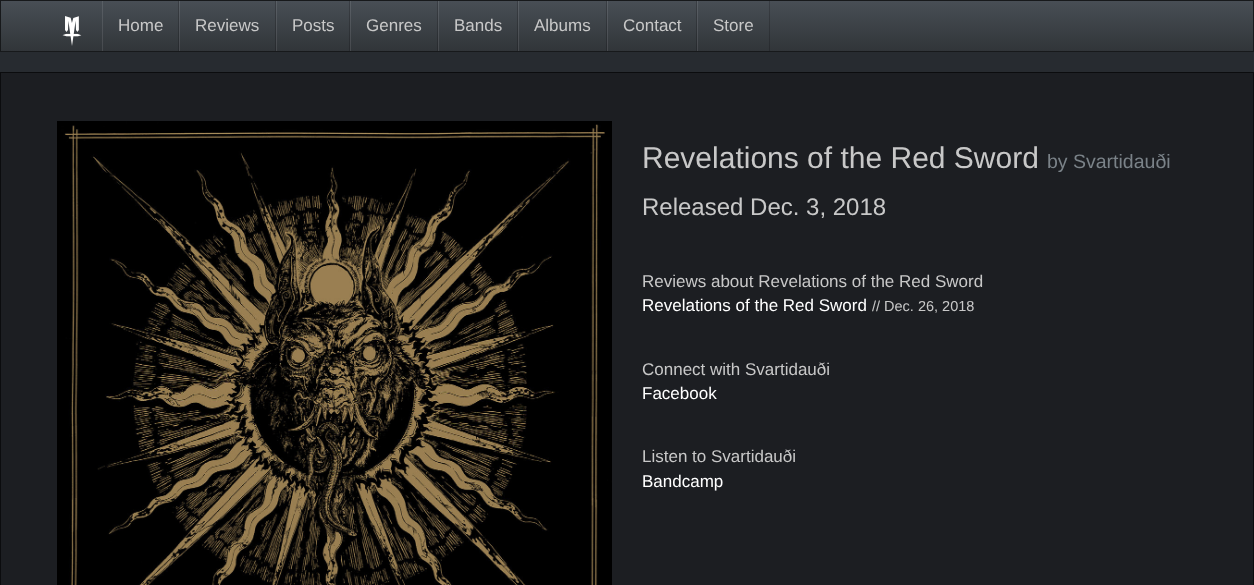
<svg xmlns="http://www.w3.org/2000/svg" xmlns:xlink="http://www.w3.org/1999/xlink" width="1254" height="585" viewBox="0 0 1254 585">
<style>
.cls-1{font:17px Liberation Sans;fill:#c8c8c8}
.cls-2{font:30px Liberation Sans;fill:#c8c8c8}
.cls-3{font:19.5px Liberation Sans;fill:#7a8288}
.cls-4{font:24px Liberation Sans;fill:#c8c8c8}
.cls-5{font:17px Liberation Sans;fill:#ffffff}
.cls-6{font:14.5px Liberation Sans;fill:#c8c8c8}
</style>
<defs>
<linearGradient id="g1" gradientUnits="userSpaceOnUse" x1="627" y1="1" x2="627" y2="51"><stop offset="0" stop-color="#484e55"/><stop offset="0.6" stop-color="#3a3f44"/><stop offset="1" stop-color="#313539"/></linearGradient>
<linearGradient id="g2" gradientUnits="userSpaceOnUse" x1="627" y1="1" x2="627" y2="51"><stop offset="0" stop-color="#5a6066"/><stop offset="0.6" stop-color="#4e5257"/><stop offset="1" stop-color="#46494d"/></linearGradient>
<linearGradient id="g3" gradientUnits="userSpaceOnUse" x1="627" y1="1" x2="627" y2="51"><stop offset="0" stop-color="#3a3e44"/><stop offset="0.6" stop-color="#2e3236"/><stop offset="1" stop-color="#272a2e"/></linearGradient>
</defs>
<rect width="100%" height="100%" fill="#272b30"/>
<rect fill="url(#g1)" x="1" y="1" width="1252" height="50"/>
<rect fill="url(#g2)" x="697" y="1" width="1" height="50"/>
<rect fill="url(#g3)" x="769" y="1" width="1" height="50"/>
<rect fill="url(#g2)" x="607" y="1" width="1" height="50"/>
<rect fill="url(#g3)" x="696" y="1" width="1" height="50"/>
<rect fill="url(#g2)" x="518" y="1" width="1" height="50"/>
<rect fill="url(#g3)" x="606" y="1" width="1" height="50"/>
<rect fill="url(#g2)" x="438" y="1" width="1" height="50"/>
<rect fill="url(#g3)" x="517" y="1" width="1" height="50"/>
<rect fill="url(#g2)" x="350" y="1" width="1" height="50"/>
<rect fill="url(#g3)" x="437" y="1" width="1" height="50"/>
<rect fill="url(#g2)" x="276" y="1" width="1" height="50"/>
<rect fill="url(#g3)" x="349" y="1" width="1" height="50"/>
<rect fill="url(#g2)" x="179" y="1" width="1" height="50"/>
<rect fill="url(#g3)" x="275" y="1" width="1" height="50"/>
<rect fill="url(#g2)" x="102" y="1" width="1" height="50"/>
<rect fill="url(#g3)" x="178" y="1" width="1" height="50"/>
<rect fill="none" stroke="#17191b" x="0.5" y="0.5" width="1253" height="51"/>
<image xlink:href="image0.png" x="62" y="16" width="20" height="30"/>
<rect fill="#1c1e22" stroke="#0b0c0e" x="0.5" y="72.5" width="1253" height="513"/>
<image xlink:href="image1.png" x="57" y="121" width="555" height="464"/>
<text class="cls-1" x="118" y="31">Home</text>
<text class="cls-1" x="195" y="31">Reviews</text>
<text class="cls-1" x="292" y="31">Posts</text>
<text class="cls-1" x="366" y="31">Genres</text>
<text class="cls-1" x="454" y="31">Bands</text>
<text class="cls-1" x="534" y="31">Albums</text>
<text class="cls-1" x="623" y="31">Contact</text>
<text class="cls-1" x="713" y="31">Store</text>
<text class="cls-2" x="642" y="168">Revelations of the Red Sword</text>
<text class="cls-3" x="1047" y="168">by Svartidauði</text>
<text class="cls-4" x="642" y="215">Released Dec. 3, 2018</text>
<text class="cls-1" x="642" y="287">Reviews about Revelations of the Red Sword</text>
<text class="cls-5" x="642" y="311">Revelations of the Red Sword</text>
<text class="cls-6" x="872" y="311">// Dec. 26, 2018</text>
<text class="cls-1" x="642" y="375">Connect with Svartidauði</text>
<text class="cls-5" x="642" y="399">Facebook</text>
<text class="cls-1" x="642" y="462">Listen to Svartidauði</text>
<text class="cls-5" x="642" y="487">Bandcamp</text>
</svg>
